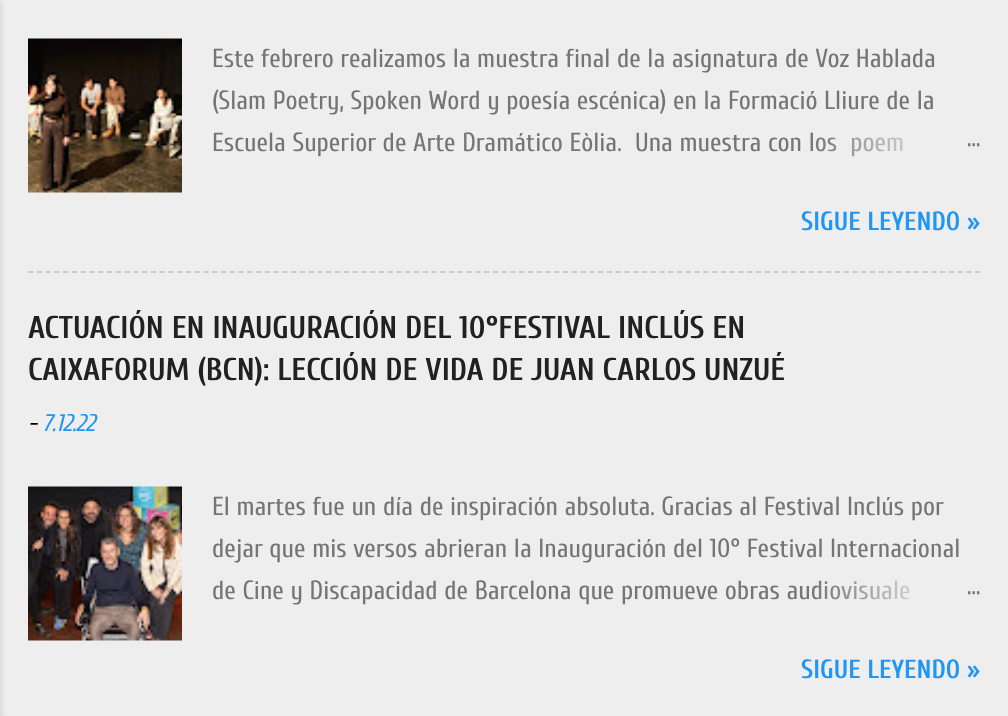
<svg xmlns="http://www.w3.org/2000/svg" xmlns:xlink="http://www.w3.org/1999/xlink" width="1008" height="716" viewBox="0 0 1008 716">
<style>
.cls-1{font:26.25px Cuprum;fill:#757575}
.cls-2{font:bold 26.25px Cuprum;fill:#2196f3}
.cls-3{font:bold 31.5px Cuprum;fill:#212121}
.cls-4{font:italic 24px Cuprum;fill:#000000}
.cls-5{font:italic 24px Cuprum;fill:#2196f3}
</style>
<defs>
<linearGradient id="g1" gradientUnits="userSpaceOnUse" x1="980" y1="144" x2="812" y2="144"><stop offset="0" stop-color="#eeeeee"/><stop offset="0.2" stop-color="#eeeeee"/><stop offset="1" stop-color="#eeeeee" stop-opacity="0"/></linearGradient>
<linearGradient id="g2" gradientUnits="userSpaceOnUse" x1="980" y1="592" x2="812" y2="592"><stop offset="0" stop-color="#eeeeee"/><stop offset="0.2" stop-color="#eeeeee"/><stop offset="1" stop-color="#eeeeee" stop-opacity="0"/></linearGradient>
</defs>
<rect width="100%" height="100%" fill="#eeeeee"/>
<rect fill="#000000" fill-opacity="0.1" filter="blur(2.5px)" x="-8" y="2" width="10" height="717"/>
<image xlink:href="image0.png" x="28" y="38" width="154" height="155"/>
<path fill="none" stroke="#cbcbcb" stroke-width="1.8" stroke-dasharray="5.25 3.52" d="M28 272H980"/>
<image xlink:href="image1.png" x="28" y="486" width="154" height="155"/>
<text class="cls-1"><tspan x="212" y="67">Este febrero realizamos la muestra final de la asignatura de Voz Hablada</tspan><tspan x="212" y="109">(Slam Poetry, Spoken Word y poesía escénica) en la Formació Lliure de la</tspan><tspan x="212" y="151">Escuela Superior de Arte Dramático Eòlia.</tspan></text>
<text class="cls-1" xml:space="preserve" x="635" y="151">Una muestra con los  poem</text>
<rect fill="url(#g1)" x="816" y="137" width="87" height="20"/>
<text class="cls-1" x="967" y="146">…</text>
<text class="cls-2" x="801" y="230">SIGUE LEYENDO »</text>
<text class="cls-3"><tspan x="28" y="338">ACTUACIÓN EN INAUGURACIÓN DEL 10°FESTIVAL INCLÚS EN</tspan><tspan x="28" y="380">CAIXAFORUM (BCN): LECCIÓN DE VIDA DE JUAN CARLOS UNZUÉ</tspan></text>
<text class="cls-4" x="28" y="431">-</text>
<text class="cls-5" x="42" y="431">7.12.22</text>
<text class="cls-1"><tspan x="212" y="515">El martes fue un día de inspiración absoluta. Gracias al Festival Inclús por</tspan><tspan x="212" y="557">dejar que mis versos abrieran la Inauguración del 10° Festival Internacional</tspan><tspan x="212" y="599">de Cine y Discapacidad de Barcelona que promueve obras audiovisuale</tspan></text>
<rect fill="url(#g2)" x="815" y="580" width="95" height="20"/>
<text class="cls-1" x="967" y="594">…</text>
<text class="cls-2" x="801" y="678">SIGUE LEYENDO »</text>
</svg>
